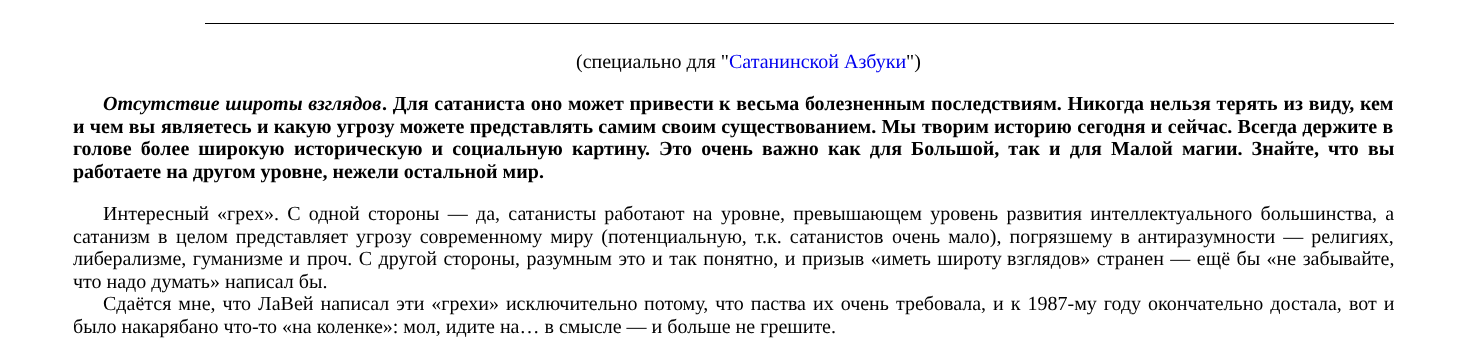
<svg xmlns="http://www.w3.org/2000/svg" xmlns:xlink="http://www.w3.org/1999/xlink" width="1467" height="349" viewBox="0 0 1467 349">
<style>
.cls-1{font:20px Liberation Serif;fill:#000000}
.cls-2{font:20px Liberation Serif;fill:#0000ee}
.cls-3{font:italic bold 20px Liberation Serif;fill:#000000}
.cls-4{font:bold 20px Liberation Serif;fill:#000000}
</style>
<rect width="100%" height="100%" fill="#ffffff"/>
<rect fill="#000000" x="205" y="23" width="1189" height="1"/>
<text class="cls-1" x="576" y="68">(специально для "</text>
<text class="cls-2" x="729" y="68">Сатанинской Азбуки</text>
<text class="cls-1" x="906" y="68">")</text>
<text class="cls-3" x="103" y="110" word-spacing="0.75">Отсутствие широты взглядов</text>
<text class="cls-4" x="382" y="110" word-spacing="0.75">. Для сатаниста оно может привести</text>
<text class="cls-4" x="719" y="110" word-spacing="0.75">к весьма болезненным последствиям. Никогда нельзя терять из виду, кем</text>
<text class="cls-4" x="73" y="133" word-spacing="0.25">и чем вы</text>
<text class="cls-4" x="161" y="133" word-spacing="0.25">являетесь и какую угрозу можете представлять самим своим существованием. Мы</text>
<text class="cls-4" x="922" y="133" word-spacing="0.25">творим историю сегодня и сейчас. Всегда держите в</text>
<text class="cls-4" x="73" y="155" word-spacing="4.1">голове более широкую</text>
<text class="cls-4" x="294" y="155" word-spacing="4.1">историческую и социальную картину. Это очень важно как для Большой, так и для</text>
<text class="cls-4" x="1111" y="155" word-spacing="4.1">Малой магии. Знайте, что вы</text>
<text class="cls-4" x="73" y="178">работаете на другом уровне, нежели остальной мир.</text>
<text class="cls-1" x="103" y="220" word-spacing="3.25">Интересный «грех». С одной стороны — да, сатанисты работают на</text>
<text class="cls-1" x="721" y="220" word-spacing="3.25">уровне, превышающем уровень развития интеллектуального большинства, а</text>
<text class="cls-1" x="73" y="243" word-spacing="3">сатанизм в</text>
<text class="cls-1" x="176" y="243" word-spacing="3">целом представляет угрозу современному миру (потенциальную, т.к. сатанистов</text>
<text class="cls-1" x="892" y="243" word-spacing="3">очень мало), погрязшему в антиразумности — религиях,</text>
<text class="cls-1" x="73" y="265" word-spacing="1.5">либерализме, гуманизме и</text>
<text class="cls-1" x="307" y="265" word-spacing="1.5">проч. С другой стороны, разумным это и так понятно, и призыв «иметь широту</text>
<text class="cls-1" x="1007" y="265" word-spacing="1.5">взглядов» странен — ещё бы «не забывайте,</text>
<text class="cls-1" x="73" y="288">что надо думать» написал бы.</text>
<text class="cls-1" x="103" y="310" word-spacing="2">Сдаётся мне, что ЛаВей написал эти «грехи» исключительно</text>
<text class="cls-1" x="644" y="310" word-spacing="2">потому, что паства их очень требовала, и к 1987-му году окончательно достала,</text>
<text class="cls-1" x="1349" y="310" word-spacing="2">вот и</text>
<text class="cls-1" x="73" y="333">было накарябано что-то «на коленке»: мол, идите на… в смысле — и больше не грешите.</text>
</svg>
